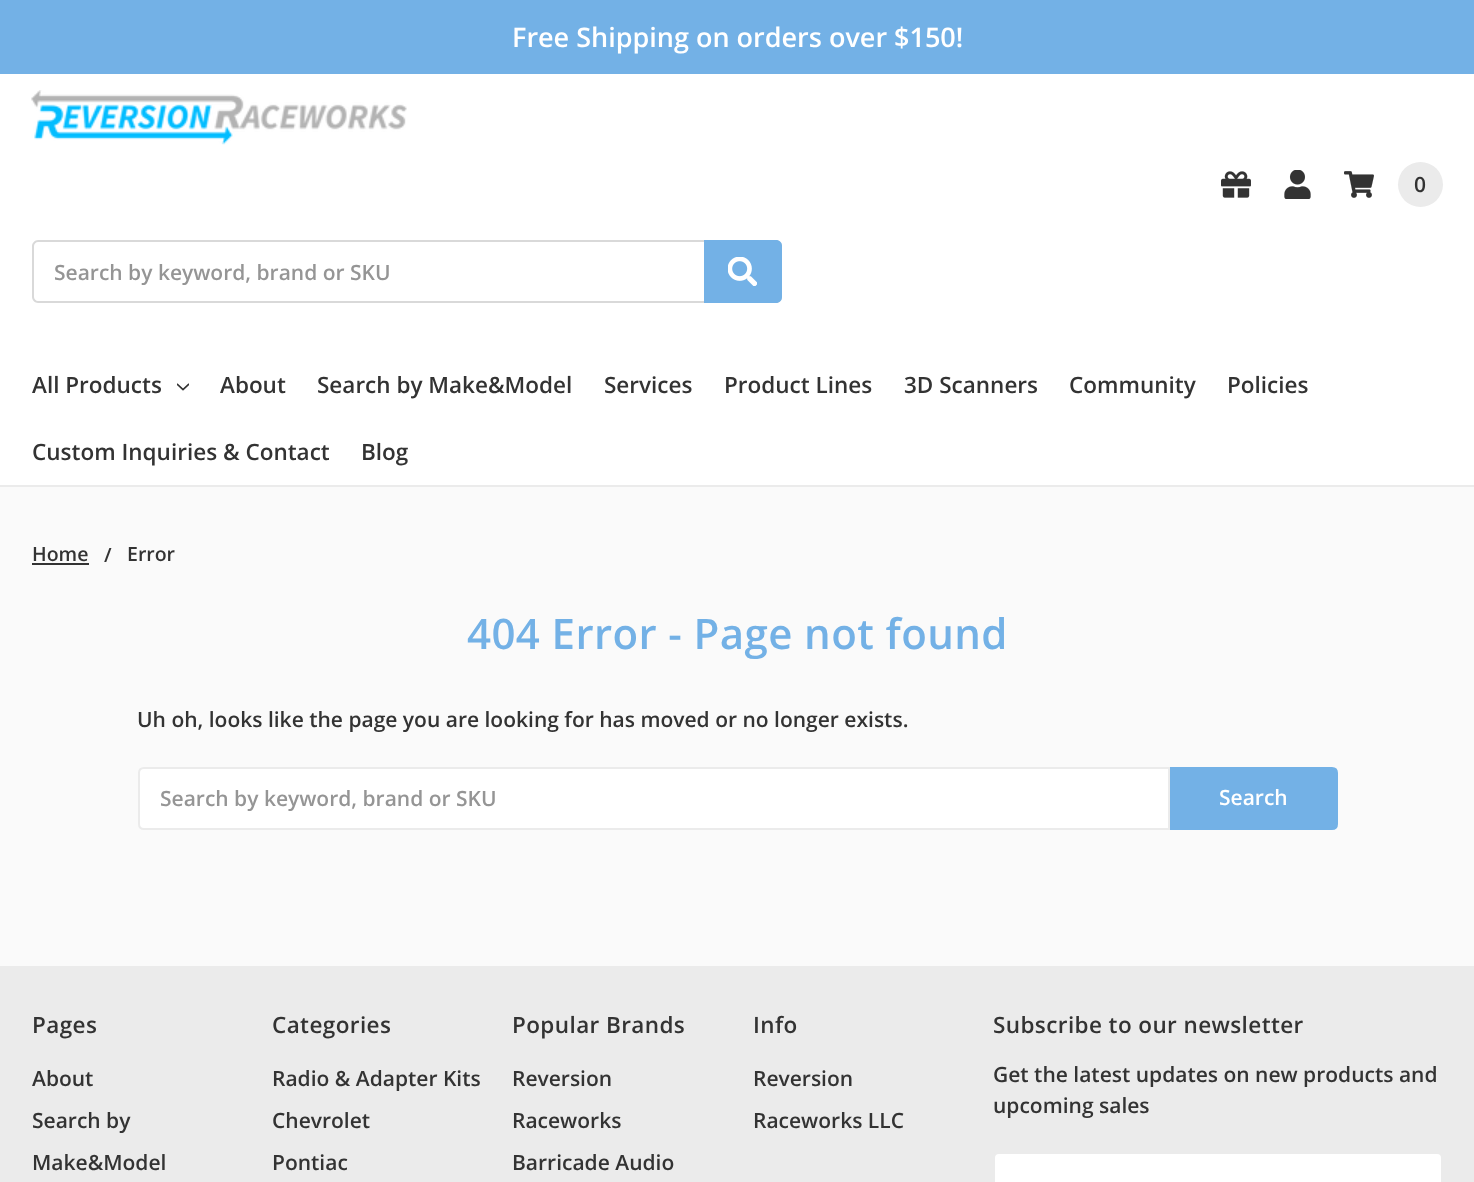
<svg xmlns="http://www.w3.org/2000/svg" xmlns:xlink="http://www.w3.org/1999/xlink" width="1474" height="1182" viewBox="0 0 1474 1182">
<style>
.cls-1{font:600 27px Open Sans;fill:#ffffff}
.cls-2{font:600 21px Open Sans;fill:#333333}
.cls-3{font:600 21px Open Sans;fill:#959595}
.cls-4{font:600 22.5px Open Sans;fill:#333333}
.cls-5{font:600 19.5px Open Sans;fill:#333333}
.cls-6{font:600 42px Open Sans;letter-spacing:0.4px;fill:#73b1e6}
.cls-7{font:600 21px Open Sans;fill:#ffffff}
.cls-8{font:600 22.5px Open Sans;letter-spacing:0.4px;fill:#333333}
</style>
<defs>
<clipPath id="clip1"><rect x="161" y="783" width="987" height="29"/></clipPath>
</defs>
<rect width="100%" height="100%" fill="#fafafa"/>
<rect fill="#73b1e6" x="0" y="0" width="1474" height="74"/>
<rect fill="#ffffff" x="0" y="74" width="1474" height="411"/>
<rect fill="#ebebeb" x="0" y="485" width="1474" height="2"/>
<image xlink:href="image0.png" x="31" y="90" width="376" height="55"/>
<image xlink:href="image1.png" x="1221" y="171" width="30" height="27"/>
<image xlink:href="image2.png" x="1284" y="170" width="27" height="29"/>
<image xlink:href="image3.png" x="1344" y="171" width="30" height="27"/>
<circle fill="#ebebeb" cx="1420.5" cy="184.5" r="22.5"/>
<path fill="#d9d9d9" fill-rule="evenodd" d="M38 240C35 240 32 243 32 246V297C32 300 35 303 38 303H776C779 303 782 300 782 297V246C782 243 779 240 776 240ZM38 242C36 242 34 244 34 246V297C34 299 36 301 38 301H780V242Z"/>
<path fill="#73b1e6" d="M704 240H776C779.5 240 782 242.5 782 246V297C782 300.5 779.5 303 776 303H704Z"/>
<image xlink:href="image4.png" x="728" y="257" width="29" height="29"/>
<image xlink:href="image5.png" x="177" y="383" width="12" height="8"/>
<rect fill="#333333" x="32" y="563" width="57" height="2"/>
<path fill="#ffffff" stroke="#ebebeb" stroke-width="2" d="M144 768H1169V829H144C141 829 139 827 139 824V773C139 770 141 768 144 768Z"/>
<path fill="#73b1e6" stroke="#73b1e6" stroke-width="2" d="M1171 768H1332C1335 768 1337 770 1337 773V824C1337 827 1335 829 1332 829H1171Z"/>
<rect fill="#ebebeb" x="0" y="966" width="1474" height="216"/>
<rect fill="#ffffff" stroke="#ebebeb" stroke-width="2" x="994" y="1153" width="448" height="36" rx="5"/>
<text class="cls-1" x="512" y="47">Free Shipping on orders over $150!</text>
<text class="cls-2" x="1414" y="192">0</text>
<text class="cls-3" x="54" y="280">Search by keyword, brand or SKU</text>
<text class="cls-4" x="32" y="393">All Products</text>
<text class="cls-4" x="220" y="393">About</text>
<text class="cls-4" x="317" y="393">Search by Make&amp;Model</text>
<text class="cls-4" x="604" y="393">Services</text>
<text class="cls-4" x="724" y="393">Product Lines</text>
<text class="cls-4" x="904" y="393">3D Scanners</text>
<text class="cls-4" x="1069" y="393">Community</text>
<text class="cls-4" x="1227" y="393">Policies</text>
<text class="cls-4" x="32" y="460">Custom Inquiries &amp; Contact</text>
<text class="cls-4" x="361" y="460">Blog</text>
<text class="cls-5" x="32" y="561">Home</text>
<text class="cls-5" x="104" y="562">/</text>
<text class="cls-5" x="127" y="561">Error</text>
<text class="cls-6" x="467" y="649">404 Error - Page not found</text>
<text class="cls-2" x="137" y="727">Uh oh, looks like the page you are looking for has moved or no longer exists.</text>
<g clip-path="url(#clip1)">
<text class="cls-3" x="160" y="806">Search by keyword, brand or SKU</text>
</g>
<text class="cls-7" x="1219" y="805">Search</text>
<text class="cls-8" x="32" y="1033">Pages</text>
<text class="cls-2" x="32" y="1086">About</text>
<text class="cls-2" x="32" y="1128">Search by</text>
<text class="cls-2" x="32" y="1170">Make&amp;Model</text>
<text class="cls-8" x="272" y="1033">Categories</text>
<text class="cls-2" x="272" y="1086">Radio &amp; Adapter Kits</text>
<text class="cls-2" x="272" y="1128">Chevrolet</text>
<text class="cls-2" x="272" y="1170">Pontiac</text>
<text class="cls-8" x="512" y="1033">Popular Brands</text>
<text class="cls-2" x="512" y="1086">Reversion</text>
<text class="cls-2" x="512" y="1128">Raceworks</text>
<text class="cls-2" x="512" y="1170">Barricade Audio</text>
<text class="cls-8" x="753" y="1033">Info</text>
<text class="cls-2" x="753" y="1086">Reversion</text>
<text class="cls-2" x="753" y="1128">Raceworks LLC</text>
<text class="cls-8" x="993" y="1033">Subscribe to our newsletter</text>
<text class="cls-2"><tspan x="993" y="1082">Get the latest updates on new products and</tspan><tspan x="993" y="1113">upcoming sales</tspan></text>
</svg>
